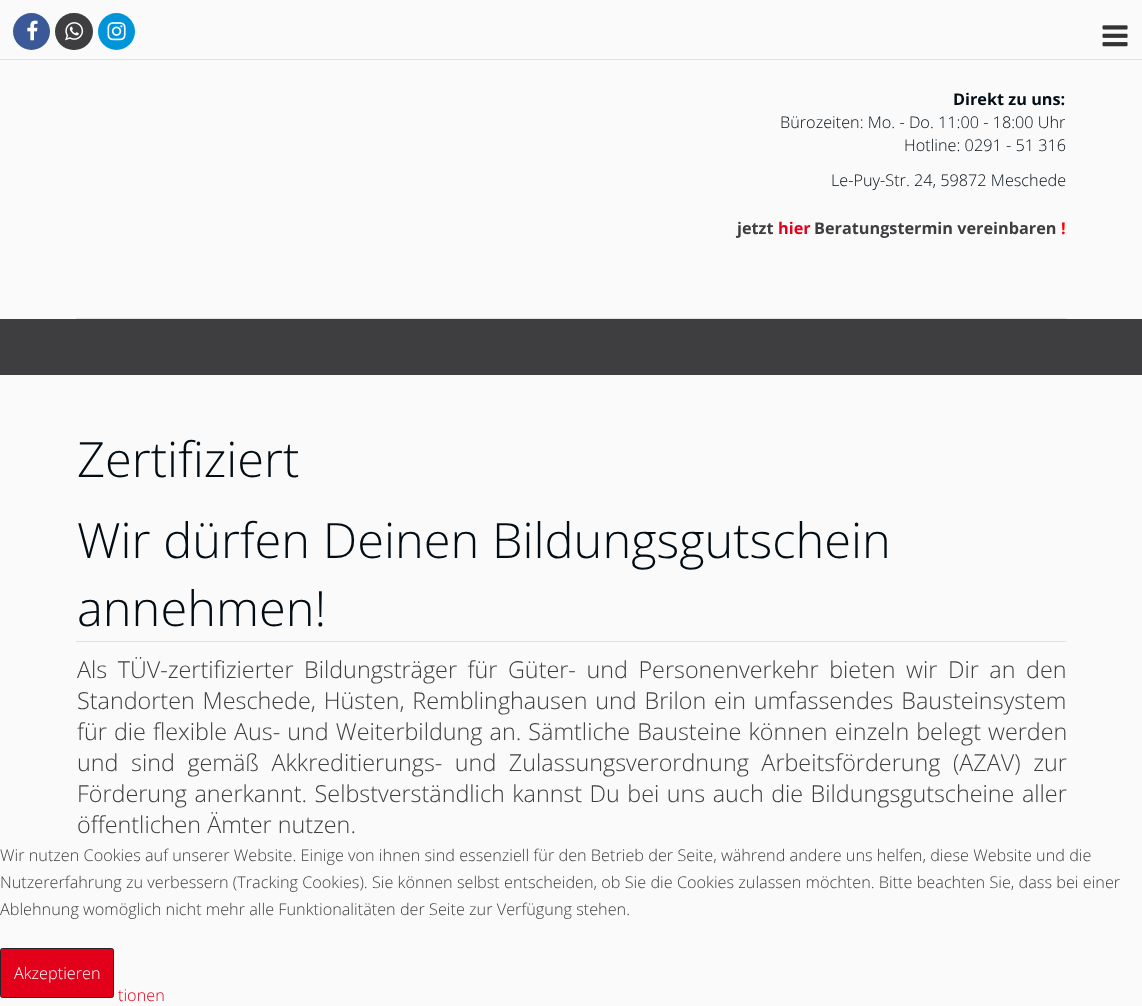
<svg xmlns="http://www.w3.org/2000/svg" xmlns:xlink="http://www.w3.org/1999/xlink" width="1142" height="1006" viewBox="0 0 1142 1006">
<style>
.cls-1{font:bold 16.25px Open Sans;fill:#010c14}
.cls-2{font:300 16.25px Open Sans;fill:#010c14}
.cls-3{font:bold 16.25px Open Sans;fill:#3e3d40}
.cls-4{font:bold 16.25px Open Sans;fill:#e2001a}
.cls-5{font:bold 16.25px Open Sans;fill:#ff0000}
.cls-6{font:300 48.75px Open Sans;fill:#010c14}
.cls-7{font:300 23.35px Open Sans;fill:#3e3d40}
.cls-8{font:300 16.25px Open Sans;fill:#3e3d40}
.cls-9{font:300 16.25px Open Sans;fill:#ffffff}
.cls-10{font:300 16.25px Open Sans;fill:#e2001a}
</style>
<rect width="100%" height="100%" fill="#fafafa"/>
<circle fill="#3b5998" cx="31.5" cy="31.5" r="18.5"/>
<image xlink:href="image0.png" x="27" y="20" width="11" height="21"/>
<rect fill="#3e3d40" x="55" y="13" width="38" height="37" rx="18.5"/>
<image xlink:href="image1.png" x="65" y="22" width="19" height="19"/>
<circle fill="#0095d8" cx="116.5" cy="31.5" r="18.5"/>
<image xlink:href="image2.png" x="107" y="22" width="19" height="19"/>
<rect fill="#e1e1e1" x="76" y="318" width="990" height="1"/>
<image xlink:href="image3.png" x="1102" y="25" width="26" height="22"/>
<rect fill="#e1e1e1" x="0" y="59" width="1142" height="1"/>
<rect fill="#3e3d40" x="0" y="319" width="1142" height="56"/>
<rect fill="#e1e1e1" x="76" y="641" width="990" height="1"/>
<rect fill="#e2001a" stroke="#252426" x="0.5" y="948.5" width="113" height="49" rx="2"/>
<text class="cls-1" x="953" y="105">Direkt zu uns:</text>
<text class="cls-2" x="780" y="128">Bürozeiten: Mo. - Do. 11:00 - 18:00 Uhr</text>
<text class="cls-2" x="904" y="151">Hotline: 0291 - 51 316</text>
<text class="cls-2" x="831" y="186">Le-Puy-Str. 24, 59872 Meschede</text>
<text class="cls-3" x="737" y="234">jetzt</text>
<text class="cls-4" x="778" y="234">hier</text>
<text class="cls-3" x="814" y="234">Beratungstermin vereinbaren</text>
<text class="cls-5" x="1061" y="234">!</text>
<text class="cls-6"><tspan x="77" y="477">Zertifiziert</tspan><tspan x="77" y="558">Wir dürfen Deinen Bildungsgutschein</tspan><tspan x="77" y="626">annehmen!</tspan></text>
<text class="cls-7"><tspan x="77" y="678" word-spacing="4.5">Als TÜV-zertifizierter Bildungsträger für Güter- und Personenverkehr bieten wir Dir an den</tspan><tspan x="77" y="709" word-spacing="1.75">Standorten Meschede, Hüsten, Remblinghausen und Brilon ein umfassendes Bausteinsystem</tspan><tspan x="77" y="740" word-spacing="1">für die flexible Aus- und Weiterbildung an. Sämtliche Bausteine können einzeln belegt werden</tspan><tspan x="77" y="771" word-spacing="6.5">und sind gemäß Akkreditierungs- und Zulassungsverordnung Arbeitsförderung (AZAV) zur</tspan><tspan x="77" y="802" word-spacing="1.4">Förderung anerkannt. Selbstverständlich kannst Du bei uns auch die Bildungsgutscheine aller</tspan><tspan x="77" y="833">öffentlichen Ämter nutzen.</tspan></text>
<text class="cls-8"><tspan x="0" y="861">Wir nutzen Cookies auf unserer Website. Einige von ihnen sind essenziell für den Betrieb der Seite, während andere uns helfen, diese Website und die</tspan><tspan x="0" y="888">Nutzererfahrung zu verbessern (Tracking Cookies). Sie können selbst entscheiden, ob Sie die Cookies zulassen möchten. Bitte beachten Sie, dass bei einer</tspan><tspan x="0" y="915">Ablehnung womöglich nicht mehr alle Funktionalitäten der Seite zur Verfügung stehen.</tspan></text>
<text class="cls-9" x="14" y="979">Akzeptieren</text>
<text class="cls-10" x="118" y="1001">tionen</text>
</svg>
